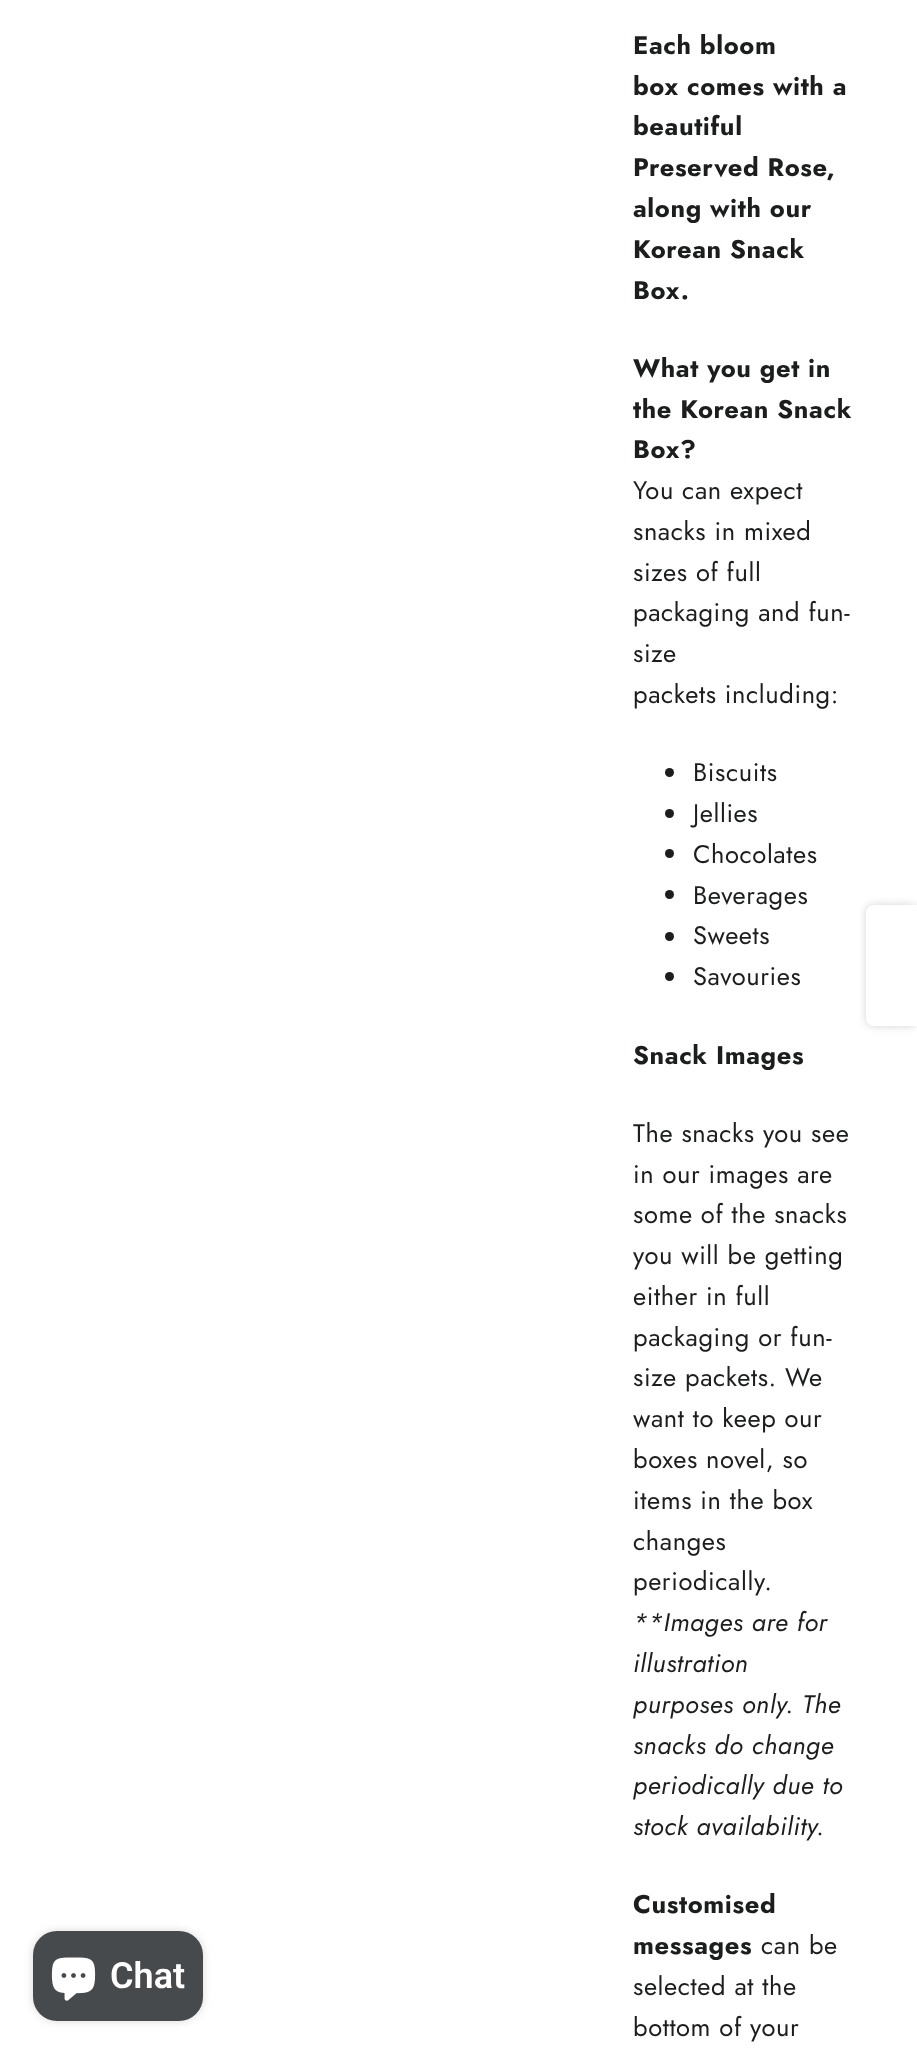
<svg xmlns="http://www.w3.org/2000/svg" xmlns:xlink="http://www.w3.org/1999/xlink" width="917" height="2052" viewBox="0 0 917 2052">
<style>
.cls-1{font:bold 25.5px Jost;letter-spacing:0.6px;fill:#1c1d1d}
.cls-2{font:25.5px Jost;letter-spacing:0.6px;fill:#1c1d1d}
.cls-3{font:italic 25.5px Jost;letter-spacing:0.6px;fill:#1c1d1d}
.cls-4{font:600 36px Roboto;fill:#ffffff}
</style>
<rect width="100%" height="100%" fill="#ffffff"/>
<circle fill="#1c1d1d" cx="669.5" cy="772.5" r="4.5"/>
<circle fill="#1c1d1d" cx="669.5" cy="813.5" r="4.5"/>
<circle fill="#1c1d1d" cx="669.5" cy="853.5" r="4.5"/>
<circle fill="#1c1d1d" cx="669.5" cy="894.5" r="4.5"/>
<circle fill="#1c1d1d" cx="669.5" cy="936.5" r="4.5"/>
<circle fill="#1c1d1d" cx="669.5" cy="976.5" r="4.5"/>
<rect fill="#d3d3d3" filter="blur(4px)" x="866" y="905" width="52" height="121" rx="8"/>
<path fill="#ffffff" d="M874 905H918V1026H874C869.5 1026 866 1022.5 866 1018V913C866 908.5 869.5 905 874 905Z"/>
<rect fill="#000000" fill-opacity="0.15" filter="blur(4px)" x="33" y="1931" width="170" height="90" rx="24"/>
<rect fill="#474a4d" x="33" y="1931" width="170" height="90" rx="24"/>
<image xlink:href="image0.png" x="51" y="1957" width="45" height="44"/>
<text class="cls-1"><tspan x="633" y="54">Each bloom</tspan><tspan x="633" y="95">box comes with a</tspan><tspan x="633" y="135">beautiful</tspan><tspan x="633" y="176">Preserved Rose,</tspan><tspan x="633" y="217">along with our</tspan><tspan x="633" y="258">Korean Snack</tspan><tspan x="633" y="299">Box.</tspan></text>
<text class="cls-1"><tspan x="633" y="377">What you get in</tspan><tspan x="633" y="418">the Korean Snack</tspan><tspan x="633" y="458">Box?</tspan></text>
<text class="cls-2"><tspan x="633" y="499">You can expect</tspan><tspan x="633" y="540">snacks in mixed</tspan><tspan x="633" y="581">sizes of full</tspan><tspan x="633" y="621">packaging and fun-</tspan><tspan x="633" y="662">size</tspan><tspan x="633" y="703">packets including:</tspan></text>
<text class="cls-2"><tspan x="693" y="781">Biscuits</tspan><tspan x="693" y="822">Jellies</tspan><tspan x="693" y="863">Chocolates</tspan><tspan x="693" y="904">Beverages</tspan><tspan x="693" y="944">Sweets</tspan><tspan x="693" y="985">Savouries</tspan></text>
<text class="cls-1" x="633" y="1064">Snack Images</text>
<text class="cls-2"><tspan x="633" y="1142">The snacks you see</tspan><tspan x="633" y="1183">in our images are</tspan><tspan x="633" y="1223">some of the snacks</tspan><tspan x="633" y="1264">you will be getting</tspan><tspan x="633" y="1305">either in full</tspan><tspan x="633" y="1346">packaging or fun-</tspan><tspan x="633" y="1386">size packets. We</tspan><tspan x="633" y="1427">want to keep our</tspan><tspan x="633" y="1468">boxes novel, so</tspan><tspan x="633" y="1509">items in the box</tspan><tspan x="633" y="1550">changes</tspan><tspan x="633" y="1590">periodically.</tspan></text>
<text class="cls-3"><tspan x="633" y="1631">**Images are for</tspan><tspan x="633" y="1672">illustration</tspan><tspan x="633" y="1713">purposes only. The</tspan><tspan x="633" y="1754">snacks do change</tspan><tspan x="633" y="1794">periodically due to</tspan><tspan x="633" y="1835">stock availability.</tspan></text>
<text class="cls-1"><tspan x="633" y="1913">Customised</tspan><tspan x="633" y="1954">messages</tspan></text>
<text class="cls-2" x="761" y="1954">can be</text>
<text class="cls-2"><tspan x="633" y="1995">selected at the</tspan><tspan x="633" y="2036">bottom of your</tspan></text>
<text class="cls-4" x="110" y="1988">Chat</text>
</svg>
